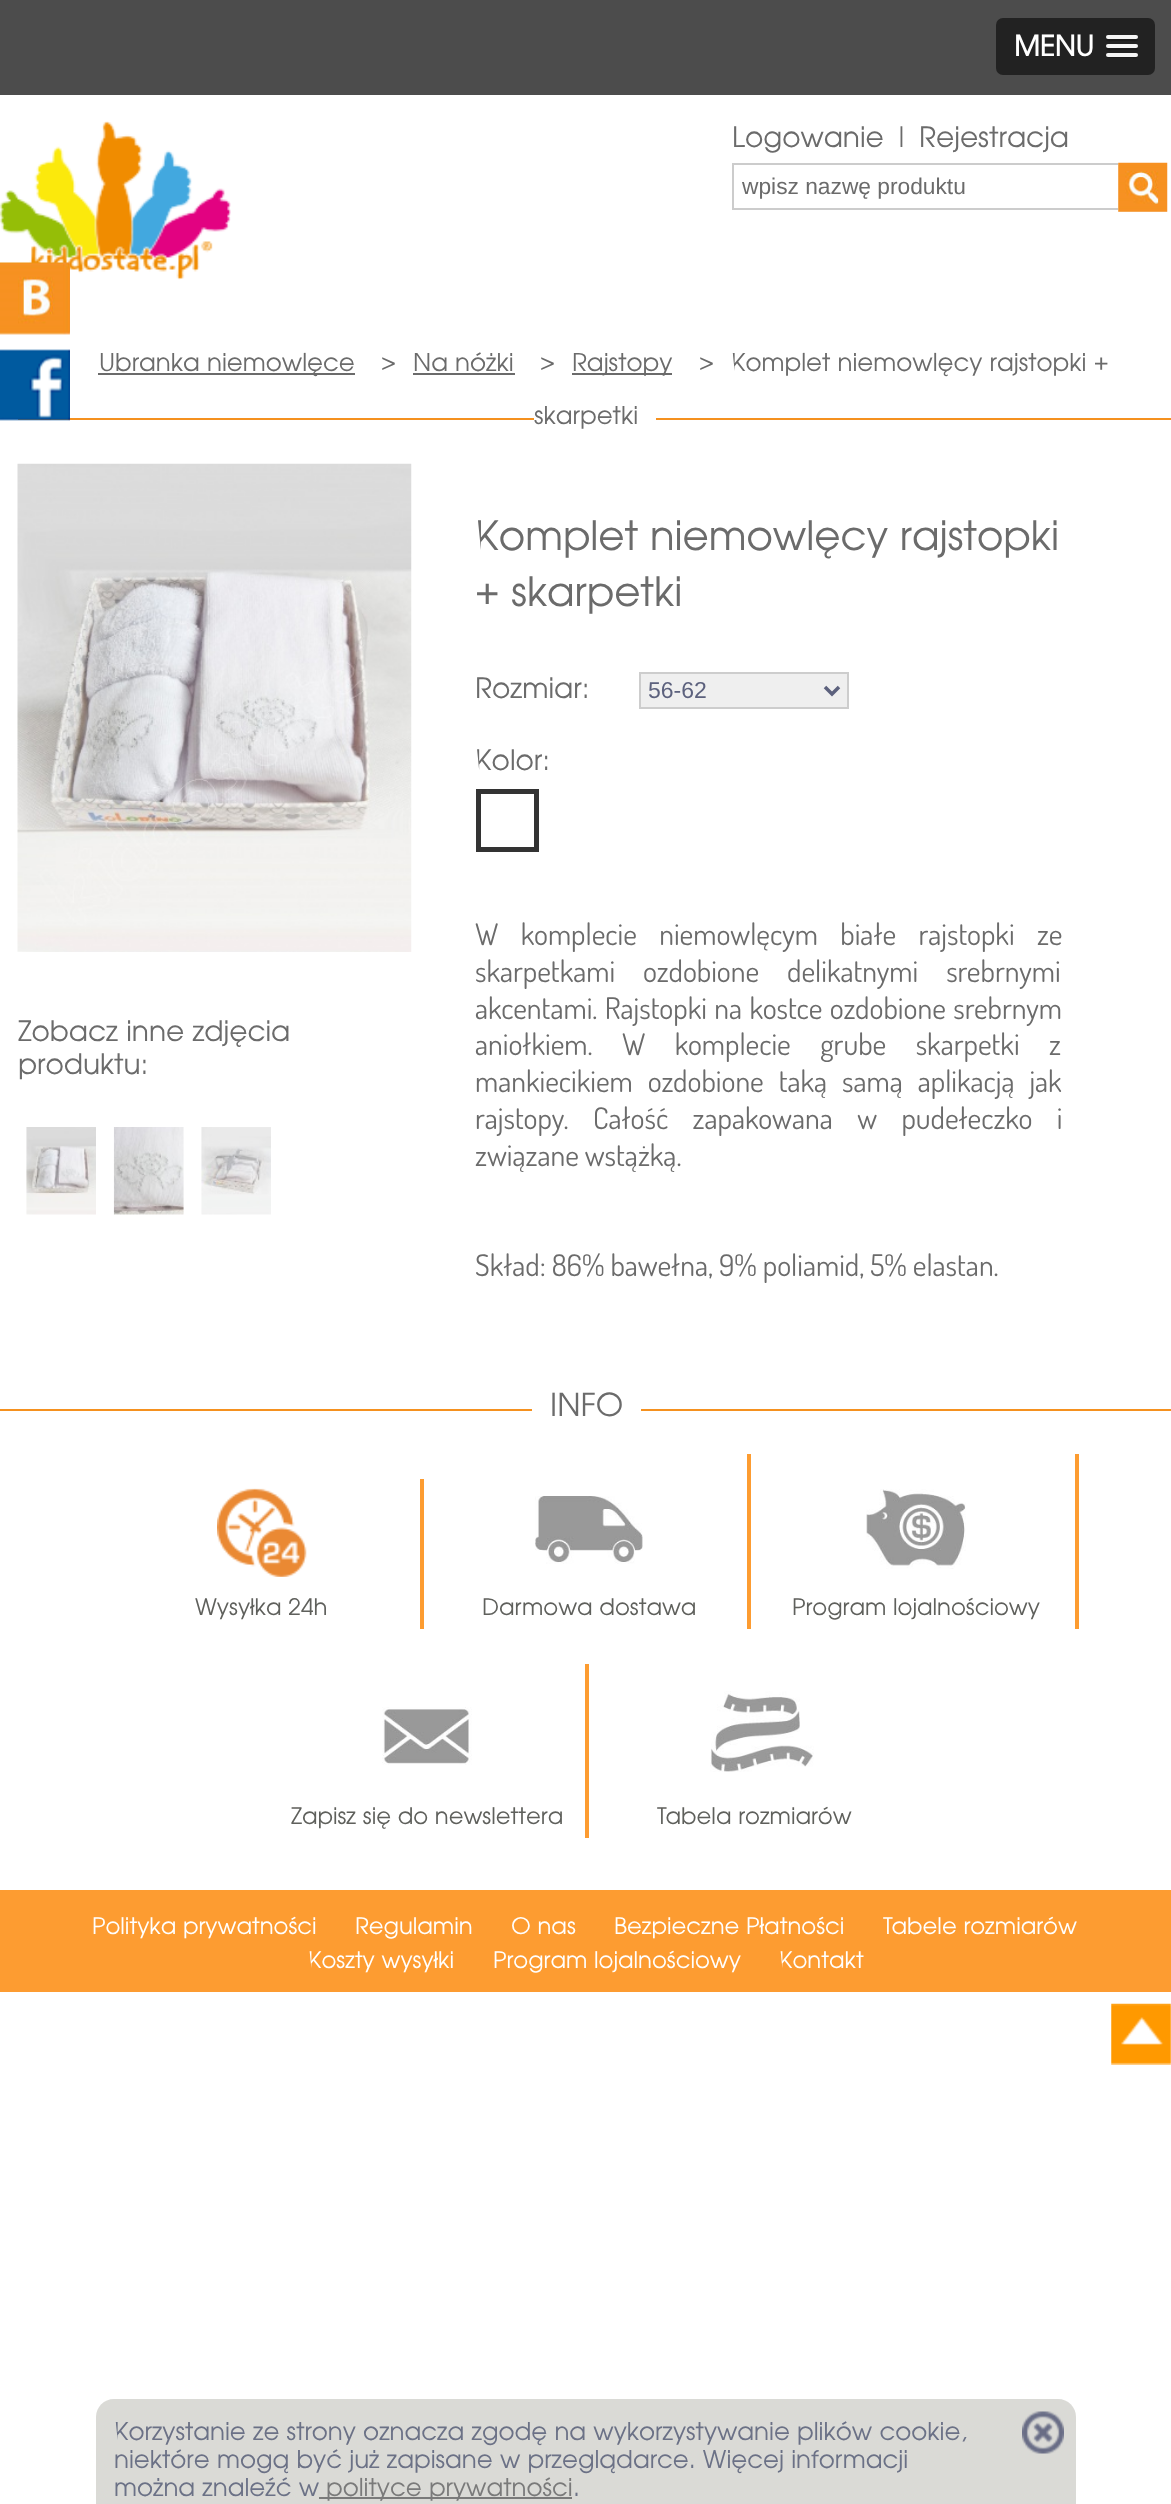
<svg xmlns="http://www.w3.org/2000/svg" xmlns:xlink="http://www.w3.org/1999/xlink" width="1171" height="2504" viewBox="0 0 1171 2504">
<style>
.cls-1{font:bold 28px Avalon;fill:#ffffff}
.cls-2{font:28px Avalon;fill:#6b6b6b}
.cls-3{font:22.75px Liberation Sans;fill:#6b6b6b}
.cls-4{font:24.5px Avalon;fill:#6b6b6b}
.cls-5{font:40.25px Avalon;fill:#6b6b6b}
.cls-6{font:23px Liberation Sans;fill:#5c617d}
.cls-7{font:29.75px Dosis;fill:#6b6b6b}
.cls-8{font:31.5px Avalon;fill:#6b6b6b}
.cls-9{font:22.75px Avalon;fill:#5f605c}
.cls-10{font:22.75px Avalon;fill:#ffffff}
.cls-11{font:24.5px Avalon;fill:#6b7186}
.cls-12{font:24.5px Avalon;fill:#7a7a7a}
</style>
<rect width="100%" height="100%" fill="#ffffff"/>
<rect fill="#4c4c4c" x="0" y="0" width="1171" height="95"/>
<rect fill="#222222" x="996" y="18" width="159" height="57" rx="7"/>
<path fill="#1a1a1a" d="M1106.5 38L1106 39.5C1106.5 42 1111.5 41 1112.5 41H1131.5C1133 41 1138 42 1138 39L1137.5 37.5C1137 38 1136.5 38.5 1136 38.5H1107.5Z"/>
<rect fill="#f5f5f5" x="1106" y="35" width="32" height="4" rx="2"/>
<path fill="#1a1a1a" d="M1106.5 46.5C1106 47 1106 48 1106 48.5C1106.5 51 1111.5 50 1112.5 50H1136C1138 50 1138.5 47.5 1137 46.5L1136 47H1107.5Z"/>
<rect fill="#f5f5f5" x="1106" y="44" width="32" height="4" rx="2"/>
<path fill="#1a1a1a" d="M1106 55C1104.5 59 1112 58 1112.5 58H1131.5C1132.5 58 1137.5 59 1138 56.5C1138 56 1138 55 1137.5 54.5C1137.5 55.5 1136.5 56 1136 56H1108C1107 56 1106.5 55.5 1106 55Z"/>
<rect fill="#f5f5f5" x="1106" y="53" width="32" height="4" rx="2"/>
<image xlink:href="image0.png" x="0" y="121" width="231" height="159"/>
<rect fill="none" stroke="#cccccc" stroke-width="2" x="733" y="164" width="430" height="45"/>
<rect fill="#efefef" x="1118" y="163" width="49" height="49"/>
<image xlink:href="image1.png" x="1118" y="162" width="50" height="50"/>
<image xlink:href="image2.png" x="1111" y="2003" width="60" height="62"/>
<rect fill="#f5911f" x="18" y="418" width="1153" height="2"/>
<image xlink:href="image3.png" x="0" y="349" width="70" height="72"/>
<rect fill="#6b6b6b" x="98" y="373" width="257" height="2"/>
<rect fill="#6b6b6b" x="413" y="373" width="102" height="2"/>
<rect fill="#6b6b6b" x="572" y="373" width="100" height="2"/>
<rect fill="#ffffff" x="534" y="418" width="122" height="2"/>
<image xlink:href="image4.png" x="17" y="463" width="395" height="489"/>
<image xlink:href="image5.png" x="26" y="1127" width="70" height="88"/>
<image xlink:href="image6.png" x="113" y="1127" width="71" height="88"/>
<image xlink:href="image7.png" x="201" y="1127" width="70" height="88"/>
<rect fill="#efefef" stroke="#cdcdcd" stroke-width="2" x="640" y="673" width="208" height="35"/>
<path fill="none" stroke="#5c617d" stroke-width="3.5" d="M825 687L832 694L839 687"/>
<rect fill="none" stroke="#333333" stroke-width="5" x="478.5" y="791.5" width="58" height="58"/>
<rect fill="#f5911f" x="0" y="1409" width="1171" height="2"/>
<rect fill="#ffffff" x="532" y="1409" width="109" height="2"/>
<rect fill="#fd9c31" x="420" y="1479" width="4" height="150"/>
<image xlink:href="image8.png" x="217" y="1488" width="90" height="89"/>
<rect fill="#fd9c31" x="747" y="1454" width="4" height="175"/>
<image xlink:href="image9.png" x="535" y="1496" width="108" height="68"/>
<rect fill="#fd9c31" x="1075" y="1454" width="4" height="175"/>
<image xlink:href="image10.png" x="866" y="1489" width="100" height="80"/>
<rect fill="#fd9c31" x="585" y="1664" width="4" height="174"/>
<image xlink:href="image11.png" x="382" y="1707" width="90" height="58"/>
<image xlink:href="image12.png" x="710" y="1691" width="104" height="81"/>
<rect fill="#fd9c31" x="0" y="1890" width="1171" height="102"/>
<image xlink:href="image13.png" x="0" y="262" width="70" height="73"/>
<path fill="#dadad6" d="M114 2399H1058C1068 2399 1076 2407 1076 2417V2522H96V2417C96 2407 104 2399 114 2399Z"/>
<rect fill="#7a7a7a" x="319" y="2497" width="253" height="2"/>
<image xlink:href="image14.png" x="1022" y="2411" width="42" height="43"/>
<text class="cls-1" x="1014" y="56">MENU</text>
<text class="cls-2" x="732" y="147">Logowanie | Rejestracja</text>
<text class="cls-3" x="742" y="194">wpisz nazwę produktu</text>
<text class="cls-4" x="99" y="371">Ubranka niemowlęce</text>
<text class="cls-4" x="381" y="371">&gt;</text>
<text class="cls-4" x="413" y="371">Na nóżki</text>
<text class="cls-4" x="540" y="371">&gt;</text>
<text class="cls-4" x="572" y="371">Rajstopy</text>
<text class="cls-4" x="699" y="371">&gt;</text>
<text class="cls-4" x="731" y="371">Komplet niemowlęcy rajstopki +</text>
<text class="cls-4" x="534" y="424">skarpetki</text>
<text class="cls-2"><tspan x="18" y="1041">Zobacz inne zdjęcia</tspan><tspan x="18" y="1074">produktu:</tspan></text>
<text class="cls-5"><tspan x="475" y="550">Komplet niemowlęcy rajstopki</tspan><tspan x="475" y="606">+ skarpetki</tspan></text>
<text class="cls-2" x="475" y="698">Rozmiar:</text>
<text class="cls-6" x="648" y="698">56-62</text>
<text class="cls-2" x="475" y="770">Kolor:</text>
<text class="cls-7"><tspan x="475" y="945" word-spacing="16.5">W komplecie niemowlęcym białe rajstopki ze</tspan><tspan x="475" y="982" word-spacing="22">skarpetkami ozdobione delikatnymi srebrnymi</tspan><tspan x="475" y="1019" word-spacing="1.5">akcentami. Rajstopki na kostce ozdobione srebrnym</tspan><tspan x="475" y="1055" word-spacing="23.5">aniołkiem. W komplecie grube skarpetki z</tspan><tspan x="475" y="1092" word-spacing="9">mankiecikiem ozdobione taką samą aplikacją jak</tspan><tspan x="475" y="1129" word-spacing="18.5">rajstopy. Całość zapakowana w pudełeczko i</tspan><tspan x="475" y="1166">związane wstążką.</tspan></text>
<text class="cls-7" x="475" y="1276">Skład: 86% bawełna, 9% poliamid, 5% elastan.</text>
<text class="cls-8" x="550" y="1416">INFO</text>
<text class="cls-9" x="195" y="1615">Wysyłka 24h</text>
<text class="cls-9" x="482" y="1615">Darmowa dostawa</text>
<text class="cls-9" x="792" y="1615">Program lojalnościowy</text>
<text class="cls-9" x="291" y="1824">Zapisz się do newslettera</text>
<text class="cls-9" x="657" y="1824">Tabela rozmiarów</text>
<text class="cls-10" x="92" y="1934">Polityka prywatności</text>
<text class="cls-10" x="355" y="1934">Regulamin</text>
<text class="cls-10" x="511" y="1934">O nas</text>
<text class="cls-10" x="614" y="1934">Bezpieczne Płatności</text>
<text class="cls-10" x="883" y="1934">Tabele rozmiarów</text>
<text class="cls-10" x="308" y="1968">Koszty wysyłki</text>
<text class="cls-10" x="493" y="1968">Program lojalnościowy</text>
<text class="cls-10" x="779" y="1968">Kontakt</text>
<text class="cls-11"><tspan x="114" y="2440">Korzystanie ze strony oznacza zgodę na wykorzystywanie plików cookie,</tspan><tspan x="114" y="2468">niektóre mogą być już zapisane w przeglądarce. Więcej informacji</tspan><tspan x="114" y="2496">można znaleźć w</tspan></text>
<text class="cls-12" x="326" y="2496">polityce prywatności</text>
<text class="cls-11" x="573" y="2496">.</text>
</svg>
